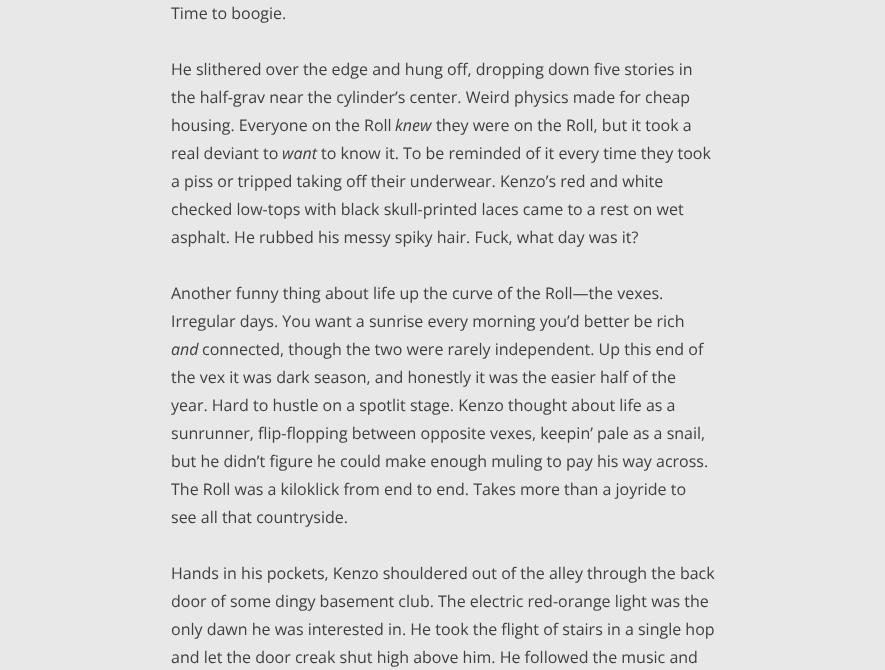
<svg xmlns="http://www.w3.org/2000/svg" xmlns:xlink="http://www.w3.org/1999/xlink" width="885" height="670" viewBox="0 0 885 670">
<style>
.cls-1{font:16px Open Sans;fill:#404040}
.cls-2{font:italic 16px Open Sans;fill:#404040}
</style>
<rect width="100%" height="100%" fill="#e8e8e8"/>
<text class="cls-1" x="171" y="19">Time to boogie.</text>
<text class="cls-1"><tspan x="171" y="75">He slithered over the edge and hung off, dropping down five stories in</tspan><tspan x="171" y="103">the half-grav near the cylinder’s center. Weird physics made for cheap</tspan><tspan x="171" y="131">housing. Everyone on the Roll</tspan></text>
<text class="cls-2" x="395" y="131">knew</text>
<text class="cls-1" x="436" y="131">they were on the Roll, but it took a</text>
<text class="cls-1" x="171" y="159">real deviant to</text>
<text class="cls-2" x="282" y="159">want</text>
<text class="cls-1" x="321" y="159">to know it. To be reminded of it every time they took</text>
<text class="cls-1"><tspan x="171" y="187">a piss or tripped taking off their underwear. Kenzo’s red and white</tspan><tspan x="171" y="215">checked low-tops with black skull-printed laces came to a rest on wet</tspan><tspan x="171" y="243">asphalt. He rubbed his messy spiky hair. Fuck, what day was it?</tspan></text>
<text class="cls-1"><tspan x="171" y="299">Another funny thing about life up the curve of the Roll—the vexes.</tspan><tspan x="171" y="327">Irregular days. You want a sunrise every morning you’d better be rich</tspan></text>
<text class="cls-2" x="171" y="355">and</text>
<text class="cls-1" x="202" y="355">connected, though the two were rarely independent. Up this end of</text>
<text class="cls-1"><tspan x="171" y="383">the vex it was dark season, and honestly it was the easier half of the</tspan><tspan x="171" y="411">year. Hard to hustle on a spotlit stage. Kenzo thought about life as a</tspan><tspan x="171" y="439">sunrunner, flip-flopping between opposite vexes, keepin’ pale as a snail,</tspan><tspan x="171" y="467">but he didn’t figure he could make enough muling to pay his way across.</tspan><tspan x="171" y="495">The Roll was a kiloklick from end to end. Takes more than a joyride to</tspan><tspan x="171" y="523">see all that countryside.</tspan></text>
<text class="cls-1"><tspan x="171" y="579">Hands in his pockets, Kenzo shouldered out of the alley through the back</tspan><tspan x="171" y="607">door of some dingy basement club. The electric red-orange light was the</tspan><tspan x="171" y="635">only dawn he was interested in. He took the flight of stairs in a single hop</tspan><tspan x="171" y="663">and let the door creak shut high above him. He followed the music and</tspan></text>
</svg>
